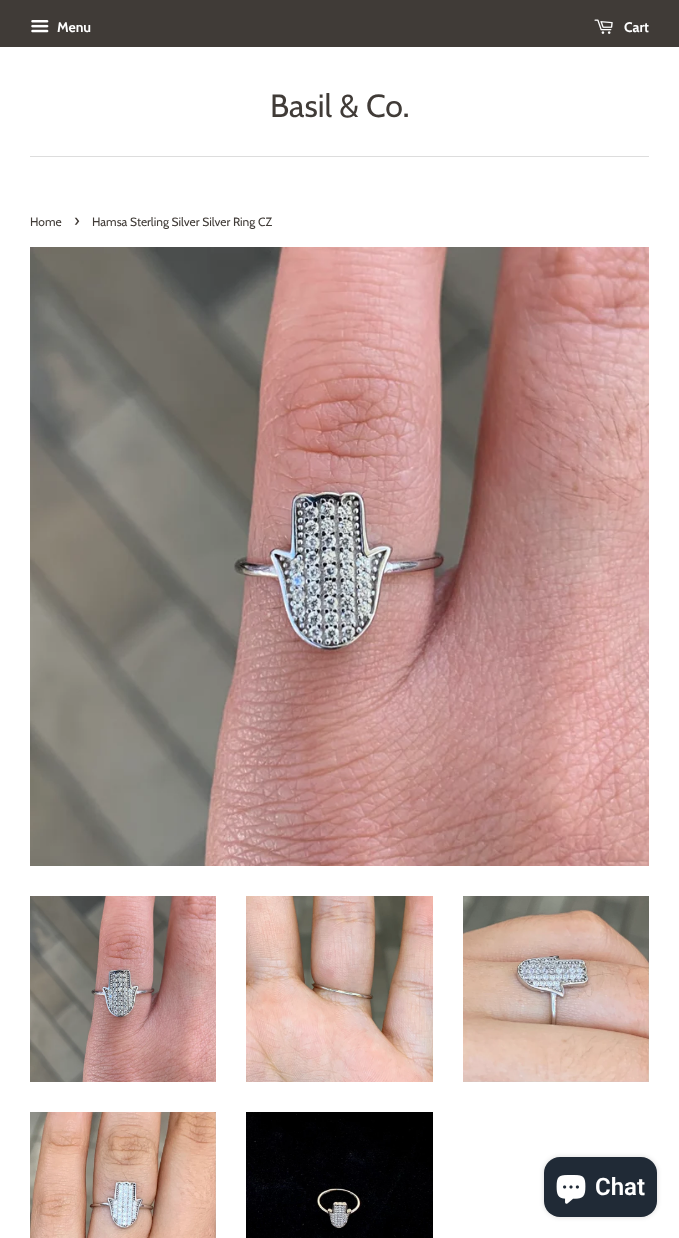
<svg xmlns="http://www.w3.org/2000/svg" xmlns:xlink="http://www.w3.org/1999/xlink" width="679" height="1238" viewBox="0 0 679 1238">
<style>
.cls-1{font:bold 14px Cabin;fill:#ffffff}
.cls-2{font:32px Cabin;fill:#403b37}
.cls-3{font:12px Cabin;fill:#403b37}
.cls-4{font:17px Cabin;fill:#403b37}
.cls-5{font:600 24px Roboto;fill:#ffffff}
</style>
<rect width="100%" height="100%" fill="#ffffff"/>
<rect fill="#403b37" x="0" y="0" width="679" height="47"/>
<image xlink:href="image0.png" x="31" y="20" width="18" height="13"/>
<image xlink:href="image1.png" x="594" y="19" width="19" height="15"/>
<rect fill="#dddddd" x="30" y="156" width="619" height="1"/>
<image xlink:href="image2.png" x="30" y="247" width="619" height="619"/>
<image xlink:href="image3.png" x="30" y="896" width="186" height="186"/>
<image xlink:href="image4.png" x="246" y="896" width="187" height="186"/>
<image xlink:href="image5.png" x="463" y="896" width="186" height="186"/>
<image xlink:href="image6.png" x="30" y="1112" width="186" height="126"/>
<image xlink:href="image7.png" x="246" y="1112" width="187" height="126"/>
<rect fill="#000000" fill-opacity="0.15" filter="blur(2.5px)" x="544" y="1157" width="113" height="60" rx="16"/>
<rect fill="#202a36" x="544" y="1157" width="113" height="60" rx="16"/>
<image xlink:href="image8.png" x="556" y="1175" width="30" height="29"/>
<text class="cls-1" x="57" y="32">Menu</text>
<text class="cls-1" x="624" y="32">Cart</text>
<text class="cls-2" x="270" y="117">Basil &amp; Co.</text>
<text class="cls-3" x="30" y="226">Home</text>
<text class="cls-4" x="74" y="226">›</text>
<text class="cls-3" x="92" y="226">Hamsa Sterling Silver Silver Ring CZ</text>
<text class="cls-5" x="595" y="1195">Chat</text>
</svg>
